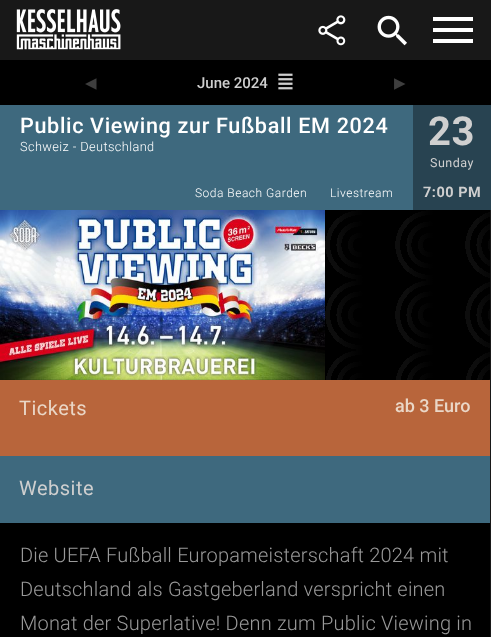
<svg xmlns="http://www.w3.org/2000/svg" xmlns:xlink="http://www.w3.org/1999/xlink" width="491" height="637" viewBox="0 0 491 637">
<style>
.cls-1{font:15px DejaVu Sans;fill:#3e3e3e}
.cls-2{font:500 15px Roboto;fill:#cfcfcf}
.cls-3{font:500 21.6px Roboto;letter-spacing:0.65px;fill:#ffffff}
.cls-4{font:300 12.75px Roboto;letter-spacing:0.4px;fill:#ffffff}
.cls-5{font:bold 40px Roboto;letter-spacing:0.5px;fill:#cfcfcf}
.cls-6{font:12.5px Roboto;letter-spacing:0.5px;fill:#cfcfcf}
.cls-7{font:bold 14.5px Roboto;letter-spacing:0.5px;fill:#cfcfcf}
.cls-8{font:300 12px Roboto;letter-spacing:0.5px;fill:#ffffff}
.cls-9{font:20px Roboto;letter-spacing:0.5px;fill:#ead7c7}
.cls-10{font:500 18px Roboto;fill:#ead7c7}
.cls-11{font:20px Roboto;letter-spacing:0.5px;fill:#cfcfcf}
.cls-12{font:300 20px Roboto;letter-spacing:0.2px;fill:#999999}
</style>
<defs>
<radialGradient id="g1" gradientUnits="userSpaceOnUse" cx="360" cy="245" r="49"><stop offset="0.15" stop-color="#000000"/><stop offset="0.15" stop-color="#0d0d0d"/><stop offset="0.25" stop-color="#0d0d0d"/><stop offset="0.25" stop-color="#000000"/><stop offset="0.38" stop-color="#000000"/><stop offset="0.38" stop-color="#0d0d0d"/><stop offset="0.48" stop-color="#0d0d0d"/><stop offset="0.48" stop-color="#000000"/><stop offset="0.61" stop-color="#000000"/><stop offset="0.61" stop-color="#0d0d0d"/><stop offset="0.71" stop-color="#0d0d0d"/><stop offset="0.71" stop-color="#000000"/></radialGradient>
<radialGradient id="g2" gradientUnits="userSpaceOnUse" cx="430" cy="245" r="49"><stop offset="0.15" stop-color="#000000"/><stop offset="0.15" stop-color="#0d0d0d"/><stop offset="0.25" stop-color="#0d0d0d"/><stop offset="0.25" stop-color="#000000"/><stop offset="0.38" stop-color="#000000"/><stop offset="0.38" stop-color="#0d0d0d"/><stop offset="0.48" stop-color="#0d0d0d"/><stop offset="0.48" stop-color="#000000"/><stop offset="0.61" stop-color="#000000"/><stop offset="0.61" stop-color="#0d0d0d"/><stop offset="0.71" stop-color="#0d0d0d"/><stop offset="0.71" stop-color="#000000"/></radialGradient>
<radialGradient id="g3" gradientUnits="userSpaceOnUse" cx="500" cy="245" r="49"><stop offset="0.15" stop-color="#000000"/><stop offset="0.15" stop-color="#0d0d0d"/><stop offset="0.25" stop-color="#0d0d0d"/><stop offset="0.25" stop-color="#000000"/><stop offset="0.38" stop-color="#000000"/><stop offset="0.38" stop-color="#0d0d0d"/><stop offset="0.48" stop-color="#0d0d0d"/><stop offset="0.48" stop-color="#000000"/><stop offset="0.61" stop-color="#000000"/><stop offset="0.61" stop-color="#0d0d0d"/><stop offset="0.71" stop-color="#0d0d0d"/><stop offset="0.71" stop-color="#000000"/></radialGradient>
<radialGradient id="g4" gradientUnits="userSpaceOnUse" cx="360" cy="315" r="49"><stop offset="0.15" stop-color="#000000"/><stop offset="0.15" stop-color="#0d0d0d"/><stop offset="0.25" stop-color="#0d0d0d"/><stop offset="0.25" stop-color="#000000"/><stop offset="0.38" stop-color="#000000"/><stop offset="0.38" stop-color="#0d0d0d"/><stop offset="0.48" stop-color="#0d0d0d"/><stop offset="0.48" stop-color="#000000"/><stop offset="0.61" stop-color="#000000"/><stop offset="0.61" stop-color="#0d0d0d"/><stop offset="0.71" stop-color="#0d0d0d"/><stop offset="0.71" stop-color="#000000"/></radialGradient>
<radialGradient id="g5" gradientUnits="userSpaceOnUse" cx="430" cy="315" r="49"><stop offset="0.15" stop-color="#000000"/><stop offset="0.15" stop-color="#0d0d0d"/><stop offset="0.25" stop-color="#0d0d0d"/><stop offset="0.25" stop-color="#000000"/><stop offset="0.38" stop-color="#000000"/><stop offset="0.38" stop-color="#0d0d0d"/><stop offset="0.48" stop-color="#0d0d0d"/><stop offset="0.48" stop-color="#000000"/><stop offset="0.61" stop-color="#000000"/><stop offset="0.61" stop-color="#0d0d0d"/><stop offset="0.71" stop-color="#0d0d0d"/><stop offset="0.71" stop-color="#000000"/></radialGradient>
<radialGradient id="g6" gradientUnits="userSpaceOnUse" cx="500" cy="315" r="49"><stop offset="0.15" stop-color="#000000"/><stop offset="0.15" stop-color="#0d0d0d"/><stop offset="0.25" stop-color="#0d0d0d"/><stop offset="0.25" stop-color="#000000"/><stop offset="0.38" stop-color="#000000"/><stop offset="0.38" stop-color="#0d0d0d"/><stop offset="0.48" stop-color="#0d0d0d"/><stop offset="0.48" stop-color="#000000"/><stop offset="0.61" stop-color="#000000"/><stop offset="0.61" stop-color="#0d0d0d"/><stop offset="0.71" stop-color="#0d0d0d"/><stop offset="0.71" stop-color="#000000"/></radialGradient>
<radialGradient id="g7" gradientUnits="userSpaceOnUse" cx="360" cy="385" r="49"><stop offset="0.15" stop-color="#000000"/><stop offset="0.15" stop-color="#0d0d0d"/><stop offset="0.25" stop-color="#0d0d0d"/><stop offset="0.25" stop-color="#000000"/><stop offset="0.38" stop-color="#000000"/><stop offset="0.38" stop-color="#0d0d0d"/><stop offset="0.48" stop-color="#0d0d0d"/><stop offset="0.48" stop-color="#000000"/><stop offset="0.61" stop-color="#000000"/><stop offset="0.61" stop-color="#0d0d0d"/><stop offset="0.71" stop-color="#0d0d0d"/><stop offset="0.71" stop-color="#000000"/></radialGradient>
<radialGradient id="g8" gradientUnits="userSpaceOnUse" cx="430" cy="385" r="49"><stop offset="0.15" stop-color="#000000"/><stop offset="0.15" stop-color="#0d0d0d"/><stop offset="0.25" stop-color="#0d0d0d"/><stop offset="0.25" stop-color="#000000"/><stop offset="0.38" stop-color="#000000"/><stop offset="0.38" stop-color="#0d0d0d"/><stop offset="0.48" stop-color="#0d0d0d"/><stop offset="0.48" stop-color="#000000"/><stop offset="0.61" stop-color="#000000"/><stop offset="0.61" stop-color="#0d0d0d"/><stop offset="0.71" stop-color="#0d0d0d"/><stop offset="0.71" stop-color="#000000"/></radialGradient>
<radialGradient id="g9" gradientUnits="userSpaceOnUse" cx="500" cy="385" r="49"><stop offset="0.15" stop-color="#000000"/><stop offset="0.15" stop-color="#0d0d0d"/><stop offset="0.25" stop-color="#0d0d0d"/><stop offset="0.25" stop-color="#000000"/><stop offset="0.38" stop-color="#000000"/><stop offset="0.38" stop-color="#0d0d0d"/><stop offset="0.48" stop-color="#0d0d0d"/><stop offset="0.48" stop-color="#000000"/><stop offset="0.61" stop-color="#000000"/><stop offset="0.61" stop-color="#0d0d0d"/><stop offset="0.71" stop-color="#0d0d0d"/><stop offset="0.71" stop-color="#000000"/></radialGradient>
<linearGradient id="g10" gradientUnits="userSpaceOnUse" x1="325" y1="245" x2="395" y2="245"><stop offset="0.12" stop-color="#000000" stop-opacity="0"/><stop offset="0.55" stop-color="#000000"/></linearGradient>
<linearGradient id="g11" gradientUnits="userSpaceOnUse" x1="395" y1="245" x2="465" y2="245"><stop offset="0.12" stop-color="#000000" stop-opacity="0"/><stop offset="0.55" stop-color="#000000"/></linearGradient>
<linearGradient id="g12" gradientUnits="userSpaceOnUse" x1="465" y1="245" x2="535" y2="245"><stop offset="0.12" stop-color="#000000" stop-opacity="0"/><stop offset="0.55" stop-color="#000000"/></linearGradient>
</defs>
<rect width="100%" height="100%" fill="#181818"/>
<image xlink:href="image0.png" x="16" y="9" width="105" height="41"/>
<image xlink:href="image1.png" x="318" y="15" width="28" height="31"/>
<image xlink:href="image2.png" x="377" y="15" width="30" height="31"/>
<path fill="#ffffff" d="M433 43H473V39H433ZM433 32H473V28H433ZM433 17V21H473V17Z"/>
<rect fill="#000000" x="0" y="60" width="491" height="45"/>
<image xlink:href="image3.png" x="278" y="73" width="15" height="17"/>
<rect fill="#3e697e" x="0" y="105" width="413" height="105"/>
<rect fill="#284351" x="413" y="105" width="78" height="105"/>
<image xlink:href="image4.png" x="0" y="210" width="325" height="170"/>
<rect fill="url(#g1)" x="325" y="210" width="38" height="70"/>
<rect fill="url(#g2)" x="395" y="210" width="38" height="70"/>
<rect fill="url(#g3)" x="465" y="210" width="25" height="70"/>
<rect fill="url(#g4)" x="325" y="280" width="38" height="70"/>
<rect fill="url(#g5)" x="395" y="280" width="38" height="70"/>
<rect fill="url(#g6)" x="465" y="280" width="25" height="70"/>
<rect fill="url(#g7)" x="325" y="350" width="38" height="30"/>
<rect fill="url(#g8)" x="395" y="350" width="38" height="30"/>
<rect fill="url(#g9)" x="465" y="350" width="25" height="30"/>
<rect fill="url(#g10)" x="339" y="210" width="56" height="170"/>
<rect fill="url(#g11)" x="409" y="210" width="56" height="170"/>
<rect fill="url(#g12)" x="479" y="212" width="11" height="168"/>
<rect fill="#b8653b" x="0" y="380" width="490" height="76"/>
<rect fill="#3e697e" x="0" y="456" width="490" height="67"/>
<rect fill="#000000" x="0" y="523" width="490" height="114"/>
<text class="cls-1" x="85" y="88">◀︎</text>
<text class="cls-2" x="197" y="88">June 2024</text>
<text class="cls-1" x="394" y="88">▶︎</text>
<text class="cls-3" x="20" y="133">Public Viewing zur Fußball EM 2024</text>
<text class="cls-4" x="20" y="151">Schweiz - Deutschland</text>
<text class="cls-5" x="428" y="145">23</text>
<text class="cls-6" x="430" y="167">Sunday</text>
<text class="cls-7" x="423" y="197">7:00 PM</text>
<text class="cls-8" x="195" y="197">Soda Beach Garden</text>
<text class="cls-8" x="330" y="197">Livestream</text>
<text class="cls-9" x="19" y="415">Tickets</text>
<text class="cls-10" x="395" y="412">ab 3 Euro</text>
<text class="cls-11" x="19" y="495">Website</text>
<text class="cls-12"><tspan x="20" y="562">Die UEFA Fußball Europameisterschaft 2024 mit</tspan><tspan x="20" y="596">Deutschland als Gastgeberland verspricht einen</tspan><tspan x="20" y="630">Monat der Superlative! Denn zum Public Viewing in</tspan></text>
</svg>
